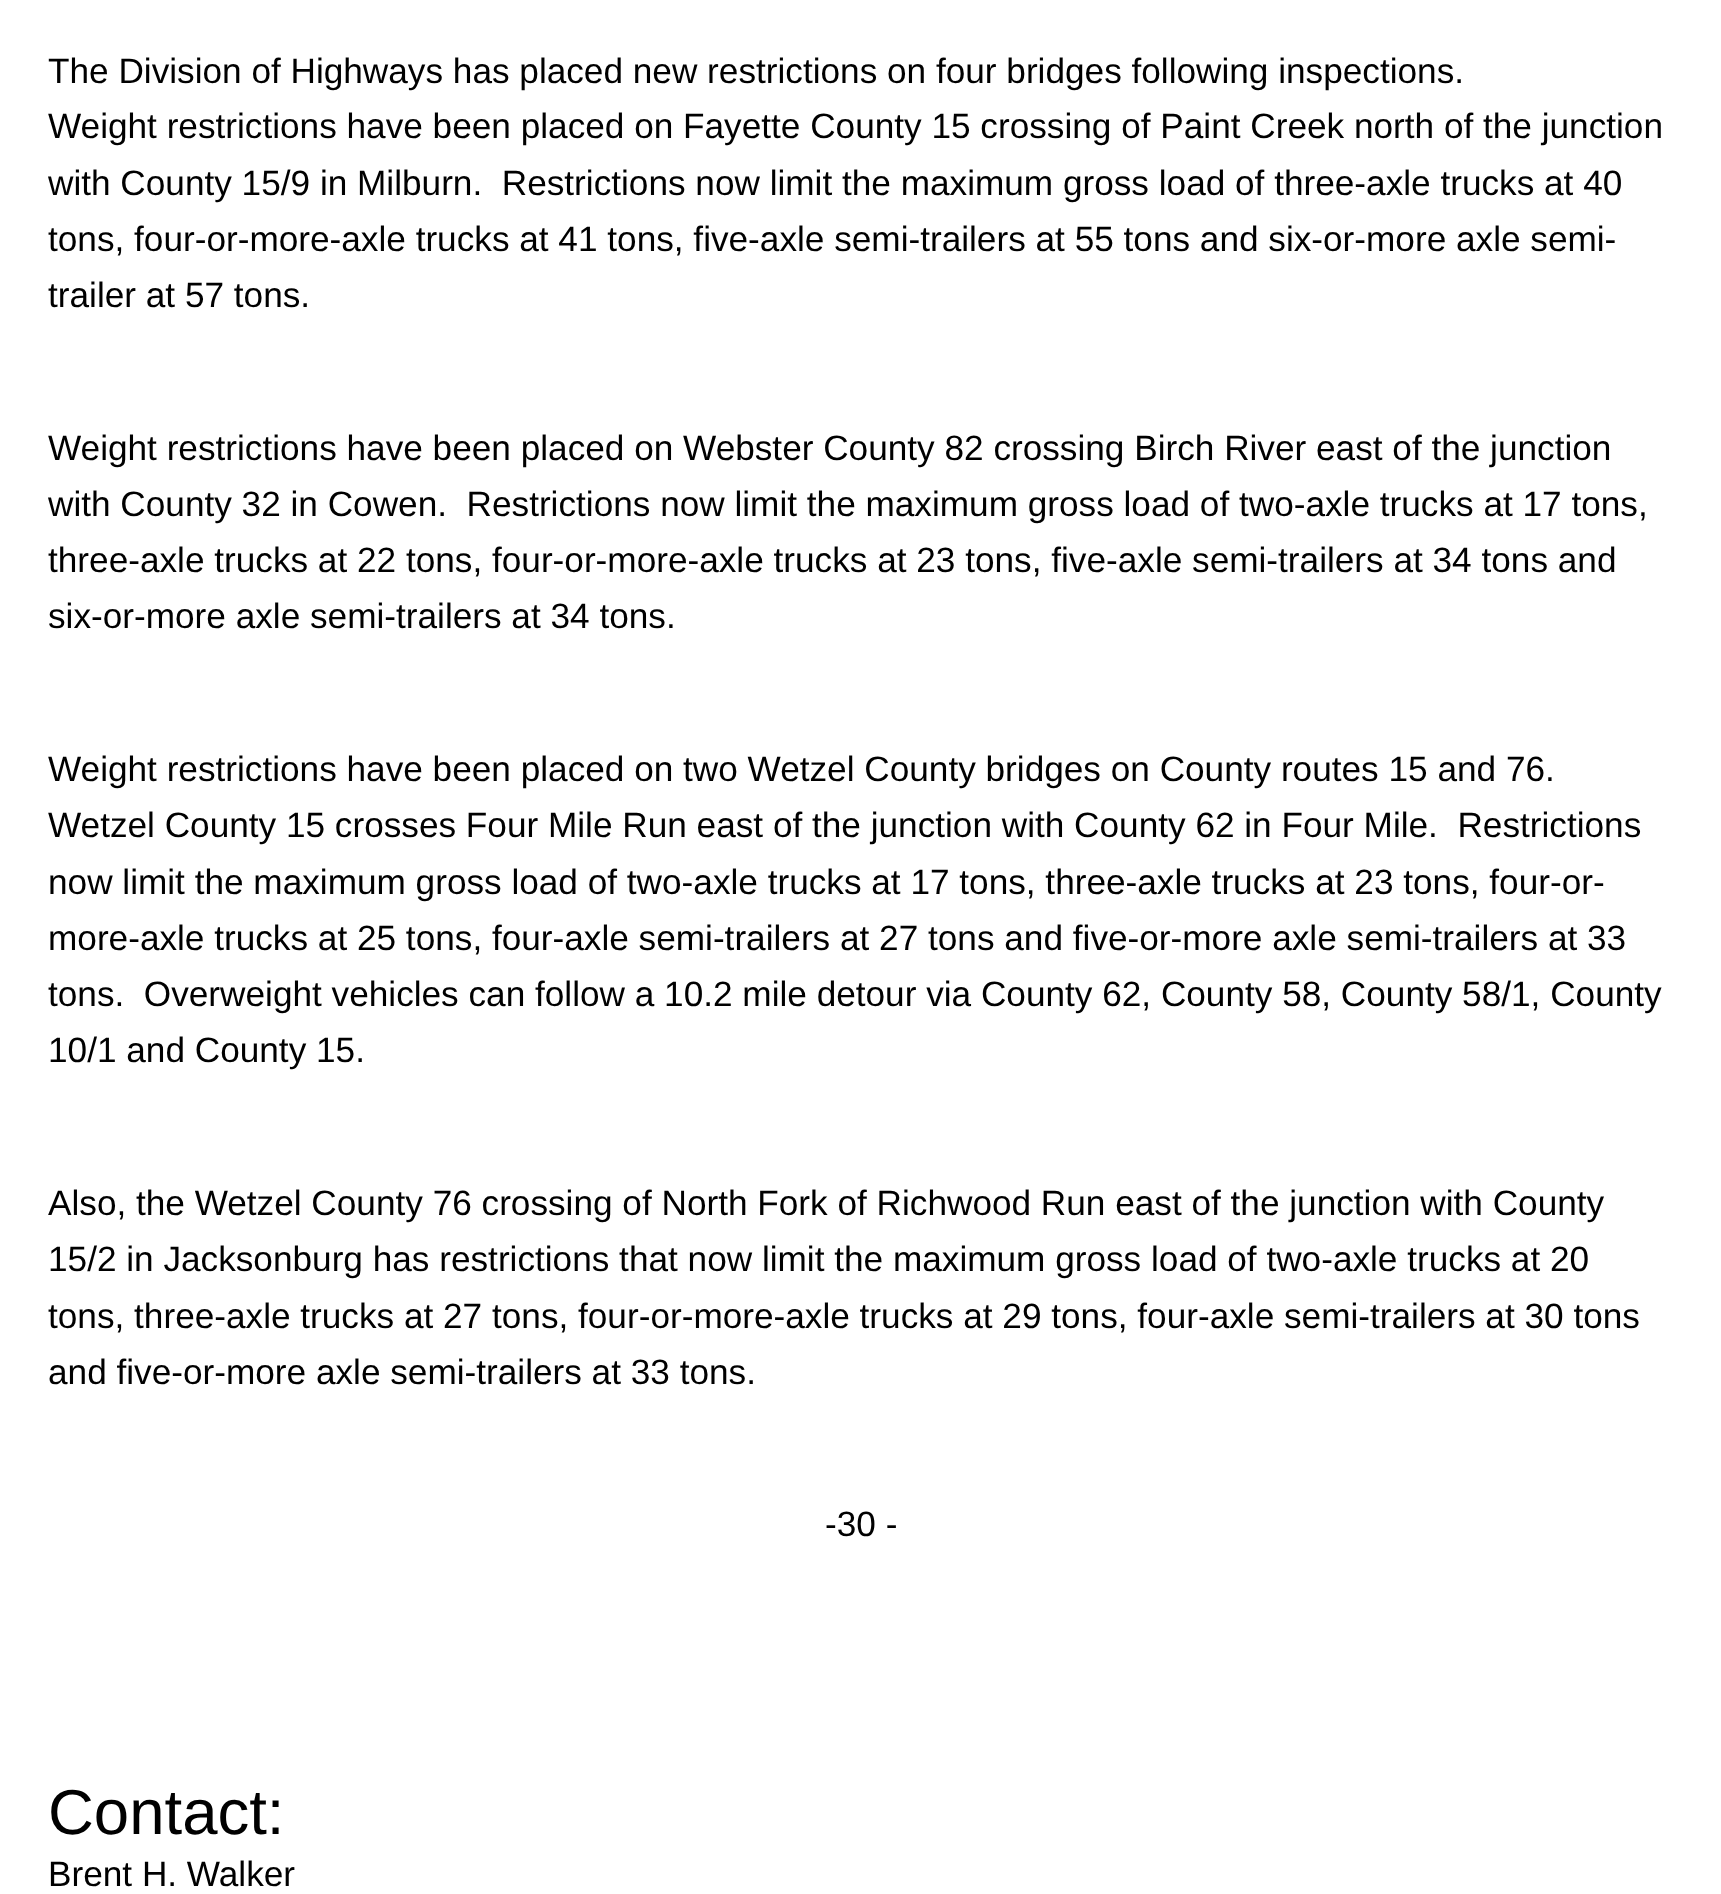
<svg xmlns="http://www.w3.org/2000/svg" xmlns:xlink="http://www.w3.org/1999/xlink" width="1721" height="1894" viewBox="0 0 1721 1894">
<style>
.cls-1{font:35.2px Liberation Sans;fill:#000000}
.cls-2{font:63.5px Liberation Sans;fill:#000000}
</style>
<rect width="100%" height="100%" fill="#ffffff"/>
<text class="cls-1" xml:space="preserve"><tspan x="48" y="83">The Division of Highways has placed new restrictions on four bridges following inspections.</tspan><tspan x="48" y="138">Weight restrictions have been placed on Fayette County 15 crossing of Paint Creek north of the junction</tspan><tspan x="48" y="195">with County 15/9 in Milburn.  Restrictions now limit the maximum gross load of three-axle trucks at 40</tspan><tspan x="48" y="251">tons, four-or-more-axle trucks at 41 tons, five-axle semi-trailers at 55 tons and six-or-more axle semi-</tspan><tspan x="48" y="307">trailer at 57 tons.</tspan></text>
<text class="cls-1" xml:space="preserve"><tspan x="48" y="460">Weight restrictions have been placed on Webster County 82 crossing Birch River east of the junction</tspan><tspan x="48" y="516">with County 32 in Cowen.  Restrictions now limit the maximum gross load of two-axle trucks at 17 tons,</tspan><tspan x="48" y="572">three-axle trucks at 22 tons, four-or-more-axle trucks at 23 tons, five-axle semi-trailers at 34 tons and</tspan><tspan x="48" y="628">six-or-more axle semi-trailers at 34 tons.</tspan></text>
<text class="cls-1" xml:space="preserve"><tspan x="48" y="781">Weight restrictions have been placed on two Wetzel County bridges on County routes 15 and 76.</tspan><tspan x="48" y="837">Wetzel County 15 crosses Four Mile Run east of the junction with County 62 in Four Mile.  Restrictions</tspan><tspan x="48" y="894">now limit the maximum gross load of two-axle trucks at 17 tons, three-axle trucks at 23 tons, four-or-</tspan><tspan x="48" y="950">more-axle trucks at 25 tons, four-axle semi-trailers at 27 tons and five-or-more axle semi-trailers at 33</tspan><tspan x="48" y="1006">tons.  Overweight vehicles can follow a 10.2 mile detour via County 62, County 58, County 58/1, County</tspan><tspan x="48" y="1062">10/1 and County 15.</tspan></text>
<text class="cls-1"><tspan x="48" y="1215">Also, the Wetzel County 76 crossing of North Fork of Richwood Run east of the junction with County</tspan><tspan x="48" y="1271">15/2 in Jacksonburg has restrictions that now limit the maximum gross load of two-axle trucks at 20</tspan><tspan x="48" y="1328">tons, three-axle trucks at 27 tons, four-or-more-axle trucks at 29 tons, four-axle semi-trailers at 30 tons</tspan><tspan x="48" y="1384">and five-or-more axle semi-trailers at 33 tons.</tspan></text>
<text class="cls-1" x="825" y="1536">-30 -</text>
<text class="cls-2" x="48" y="1834">Contact:</text>
<text class="cls-1" x="48" y="1886">Brent H. Walker</text>
</svg>
